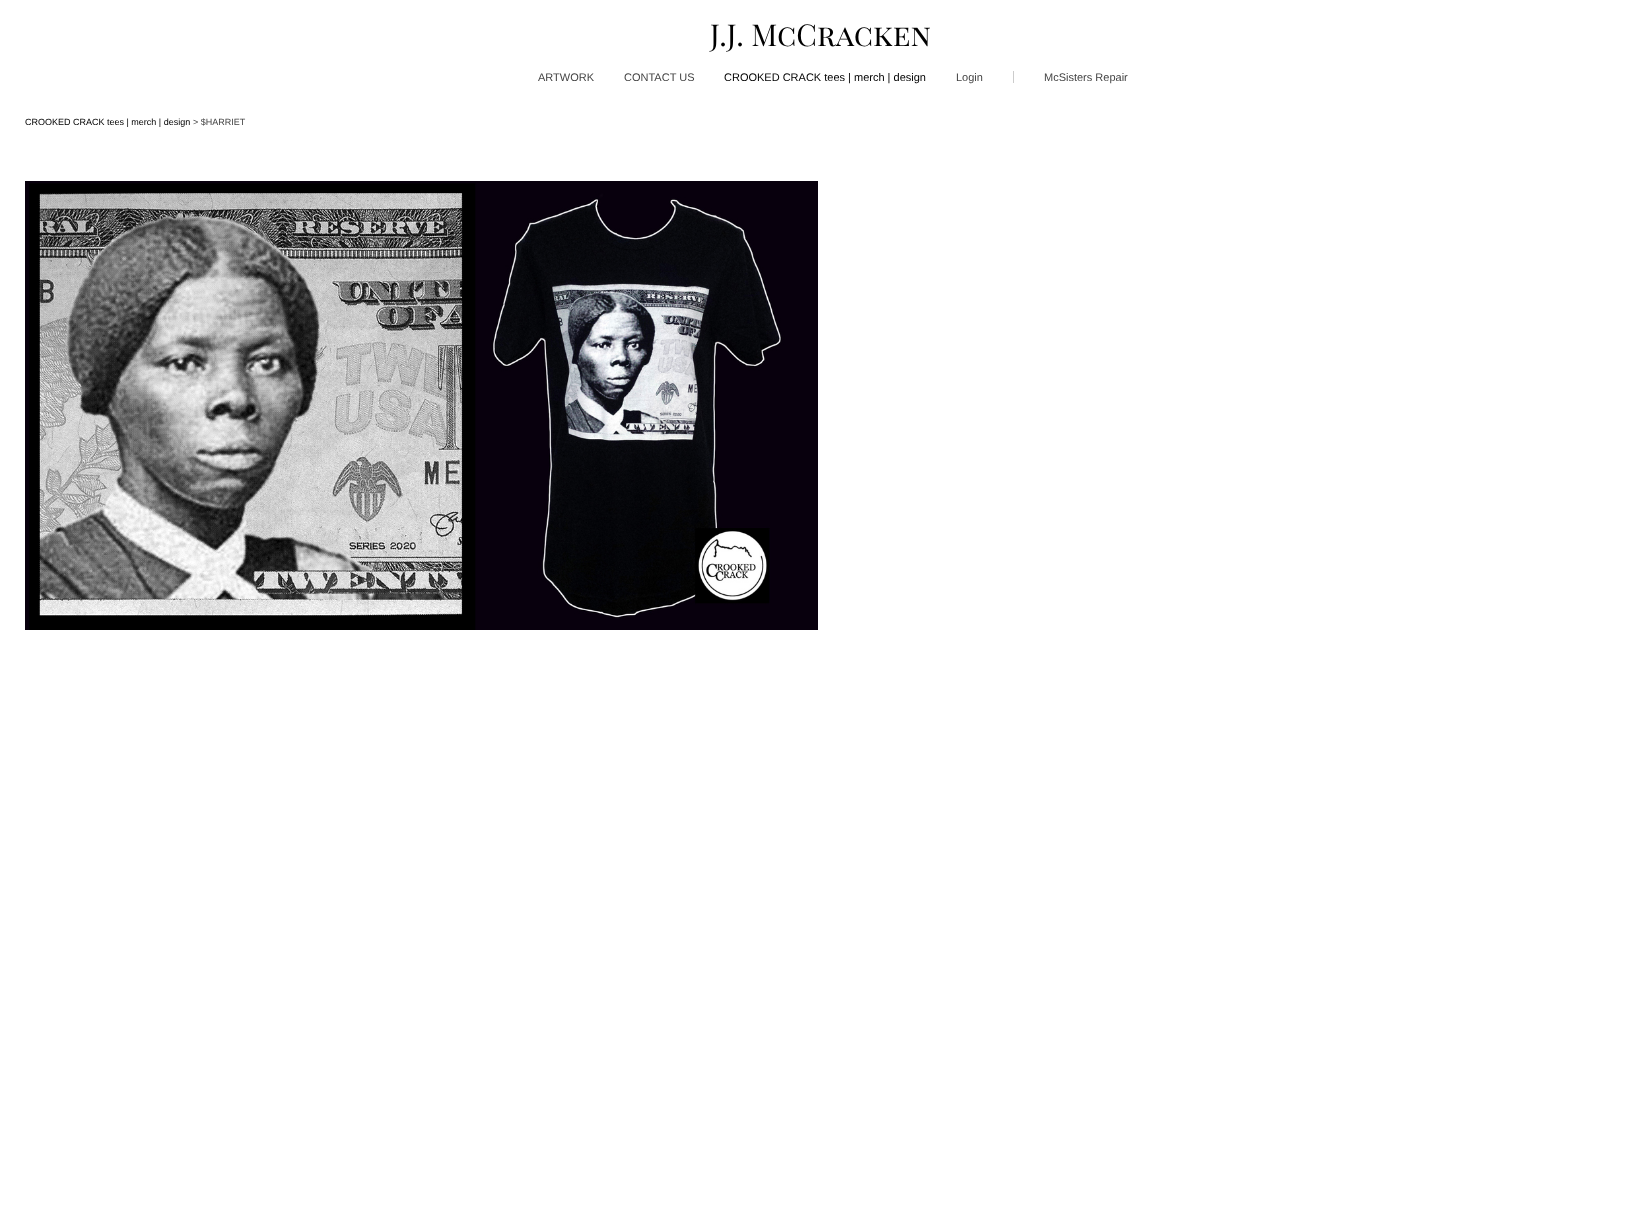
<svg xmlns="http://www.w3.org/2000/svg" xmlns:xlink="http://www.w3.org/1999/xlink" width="1641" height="1224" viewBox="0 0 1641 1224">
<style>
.cls-1{font:30px Playfair Display SC;fill:#000000}
.cls-2{font:11px Liberation Sans;fill:#444444}
.cls-3{font:11px Liberation Sans;fill:#000000}
.cls-4{font:9px Liberation Sans;fill:#000000}
.cls-5{font:9px Liberation Sans;fill:#444444}
</style>
<rect width="100%" height="100%" fill="#ffffff"/>
<rect fill="#cccccc" x="1013" y="71" width="1" height="12"/>
<image xlink:href="image0.png" x="25" y="181" width="793" height="449"/>
<text class="cls-1" x="710" y="46">J.J. McCracken</text>
<text class="cls-2" x="538" y="81">ARTWORK</text>
<text class="cls-2" x="624" y="81">CONTACT US</text>
<text class="cls-3" x="724" y="81">CROOKED CRACK tees | merch | design</text>
<text class="cls-2" x="956" y="81">Login</text>
<text class="cls-2" x="1044" y="81">McSisters Repair</text>
<text class="cls-4" x="25" y="125">CROOKED CRACK tees | merch | design</text>
<text class="cls-5" x="193" y="125">&gt; $HARRIET</text>
</svg>
